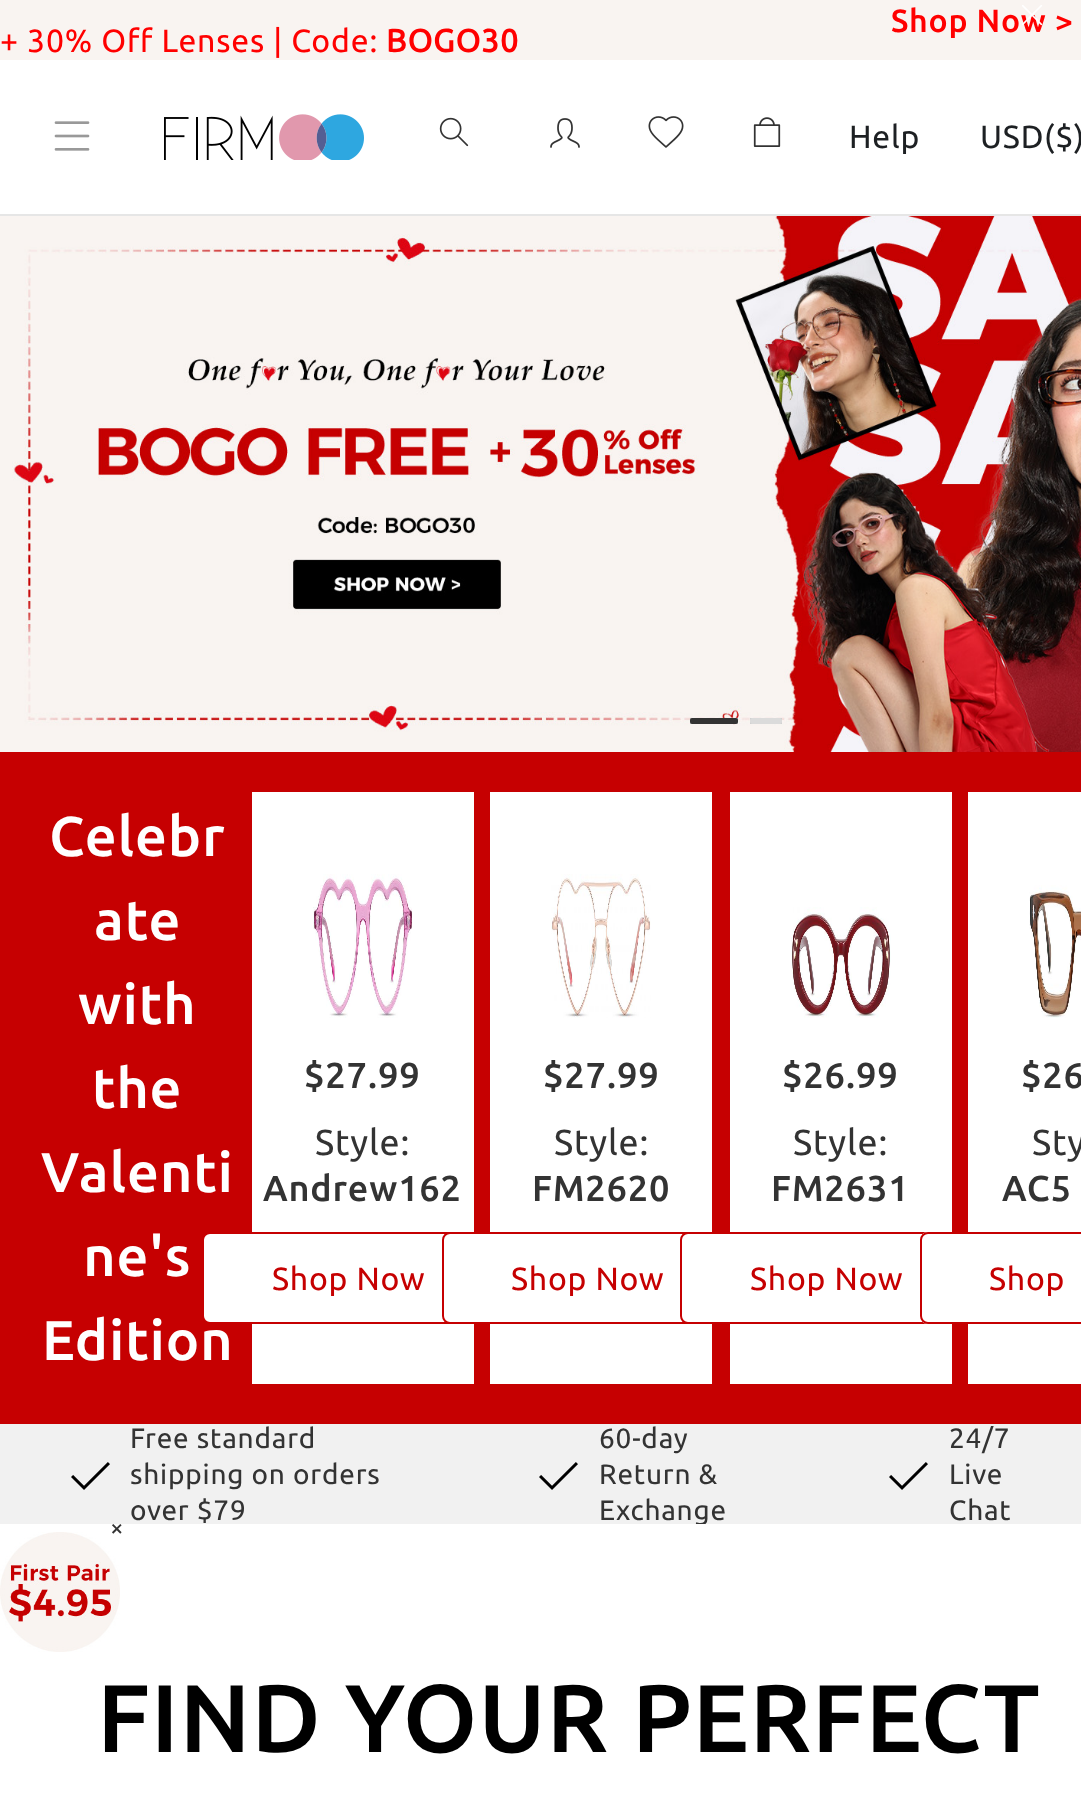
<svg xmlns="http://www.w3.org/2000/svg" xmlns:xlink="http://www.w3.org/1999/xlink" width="1081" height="1811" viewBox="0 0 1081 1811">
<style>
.cls-1{font:500 32px Ubuntu;letter-spacing:0.8px;fill:#ff0000}
.cls-2{font:32px Ubuntu;letter-spacing:0.8px;fill:#ff0000}
.cls-3{font:bold 32px Ubuntu;letter-spacing:0.8px;fill:#ff0000}
.cls-4{font:32px Ubuntu;letter-spacing:0.8px;fill:#1d2023}
.cls-5{font:500 56px Ubuntu;letter-spacing:0.8px;fill:#ffffff}
.cls-6{font:500 36px Ubuntu;letter-spacing:0.8px;fill:#333333}
.cls-7{font:36px Ubuntu;letter-spacing:0.8px;fill:#333333}
.cls-8{font:32px Ubuntu;letter-spacing:0.8px;fill:#c60001}
.cls-9{font:28px Ubuntu;letter-spacing:0.8px;fill:#333333}
.cls-10{font:500 96px Ubuntu;letter-spacing:0.8px;fill:#000000}
.cls-11{font:24px Ubuntu;letter-spacing:0.8px;fill:#333333}
</style>
<rect width="100%" height="100%" fill="#ffffff"/>
<rect fill="#f9f4f1" x="0" y="0" width="1081" height="60"/>
<rect fill="#e6e6e6" x="0" y="214" width="1081" height="2"/>
<image xlink:href="image1.png" x="54" y="121" width="36" height="30"/>
<image xlink:href="image2.png" x="164" y="114" width="200" height="46"/>
<image xlink:href="image3.png" x="439" y="117" width="30" height="30"/>
<image xlink:href="image4.png" x="550" y="118" width="30" height="30"/>
<image xlink:href="image5.png" x="648" y="116" width="36" height="32"/>
<image xlink:href="image6.png" x="753" y="117" width="28" height="30"/>
<image xlink:href="image7.png" x="0" y="216" width="1081" height="536"/>
<rect fill="#cccccc" x="690" y="718" width="48" height="6"/>
<rect fill="#333333" x="690" y="718" width="48" height="6" rx="2"/>
<rect fill="#cccccc" x="750" y="718" width="32" height="6"/>
<rect fill="#dbdbdb" x="750" y="718" width="32" height="6" rx="2"/>
<rect fill="#c60001" x="0" y="752" width="1081" height="672"/>
<rect fill="#ffffff" x="252" y="792" width="222" height="592"/>
<image xlink:href="image8.png" x="313" y="874" width="99" height="144"/>
<rect fill="#ffffff" stroke="#c60001" stroke-width="2" x="203" y="1233" width="318" height="90" rx="7"/>
<rect fill="#ffffff" x="490" y="792" width="222" height="592"/>
<image xlink:href="image9.png" x="551" y="874" width="100" height="144"/>
<rect fill="#ffffff" stroke="#c60001" stroke-width="2" x="443" y="1233" width="318" height="90" rx="7"/>
<rect fill="#ffffff" x="730" y="792" width="222" height="592"/>
<image xlink:href="image10.png" x="791" y="907" width="100" height="111"/>
<rect fill="#ffffff" stroke="#c60001" stroke-width="2" x="681" y="1233" width="318" height="90" rx="7"/>
<rect fill="#ffffff" x="968" y="792" width="113" height="592"/>
<image xlink:href="image11.png" x="1029" y="885" width="52" height="133"/>
<path fill="#ffffff" d="M928 1232H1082V1324H928C923.5 1324 920 1320.5 920 1316V1240C920 1235.5 923.5 1232 928 1232Z"/>
<rect fill="none" stroke="#c60001" stroke-width="2" x="921" y="1233" width="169" height="90" rx="7"/>
<rect fill="#f1f1f1" x="0" y="1424" width="1081" height="100"/>
<image xlink:href="image12.png" x="71" y="1462" width="39" height="28"/>
<image xlink:href="image12.png" x="539" y="1462" width="39" height="28"/>
<image xlink:href="image12.png" x="889" y="1462" width="39" height="28"/>
<image xlink:href="image13.png" x="0" y="1532" width="120" height="120"/>
<text class="cls-1" x="891" y="32">Shop Now &gt;</text>
<image xlink:href="image0.png" x="1022" y="5" width="21" height="21"/>
<text class="cls-2" x="0" y="52">+ 30% Off Lenses | Code:</text>
<text class="cls-3" x="386" y="52">BOGO30</text>
<text class="cls-4" x="849" y="148">Help</text>
<text class="cls-4" x="980" y="148">USD</text>
<text class="cls-4" x="1044" y="148">($)</text>
<text class="cls-5" x="49" y="856">Celebr</text>
<text class="cls-5" x="94" y="940">ate</text>
<text class="cls-5" x="78" y="1024">with</text>
<text class="cls-5" x="92" y="1108">the</text>
<text class="cls-5" x="41" y="1192">Valenti</text>
<text class="cls-5" x="83" y="1276">ne's</text>
<text class="cls-5" x="42" y="1360">Edition</text>
<text class="cls-6" x="304" y="1088">$27.99</text>
<text class="cls-7" x="315" y="1155">Style:</text>
<text class="cls-6" x="263" y="1201">Andrew162</text>
<text class="cls-8" x="272" y="1290">Shop Now</text>
<text class="cls-6" x="543" y="1088">$27.99</text>
<text class="cls-7" x="554" y="1155">Style:</text>
<text class="cls-6" x="532" y="1201">FM2620</text>
<text class="cls-8" x="511" y="1290">Shop Now</text>
<text class="cls-6" x="782" y="1088">$26.99</text>
<text class="cls-7" x="793" y="1155">Style:</text>
<text class="cls-6" x="771" y="1201">FM2631</text>
<text class="cls-8" x="750" y="1290">Shop Now</text>
<text class="cls-6" x="1021" y="1088">$26</text>
<text class="cls-7" x="1032" y="1155">Sty</text>
<text class="cls-6" x="1002" y="1201">AC5</text>
<text class="cls-8" x="989" y="1290">Shop</text>
<text class="cls-9"><tspan x="130" y="1448">Free standard</tspan><tspan x="130" y="1484">shipping on orders</tspan><tspan x="130" y="1520">over $79</tspan></text>
<text class="cls-9"><tspan x="599" y="1448">60-day</tspan><tspan x="599" y="1484">Return &amp;</tspan><tspan x="599" y="1520">Exchange</tspan></text>
<text class="cls-9"><tspan x="949" y="1448">24/7</tspan><tspan x="949" y="1484">Live</tspan><tspan x="949" y="1520">Chat</tspan></text>
<rect fill="#ffffff" x="695" y="1524" width="10" height="2"/>
<text class="cls-10" x="97" y="1752">FIND YOUR PERFECT</text>
<text class="cls-11" x="110" y="1536">×</text>
</svg>
